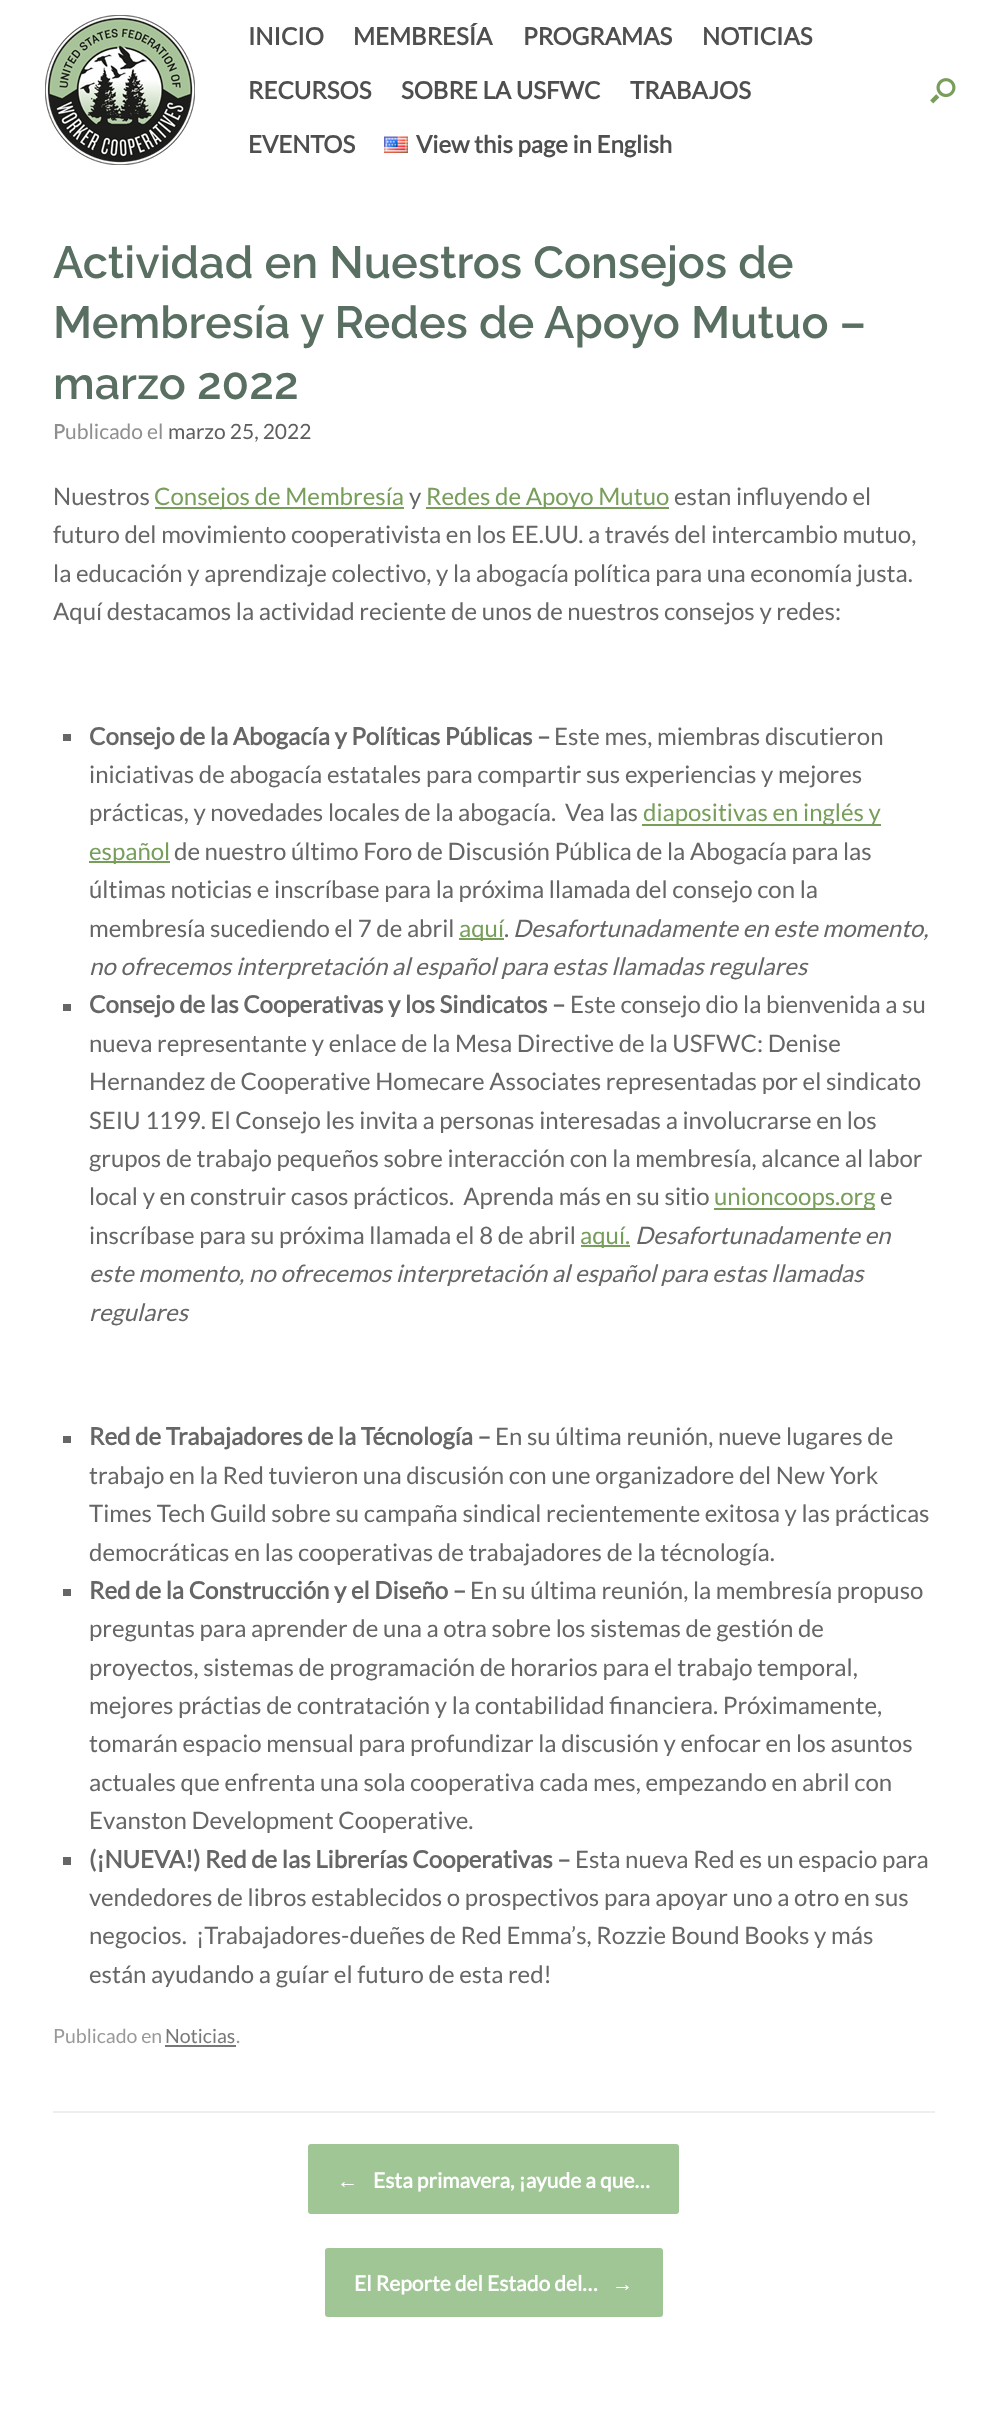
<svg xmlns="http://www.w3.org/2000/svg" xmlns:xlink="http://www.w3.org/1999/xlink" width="986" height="2417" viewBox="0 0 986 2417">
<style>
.cls-1{font:bold 24px Lato;fill:#4f4f4f}
.cls-2{font:600 45px Raleway;fill:#596f62}
.cls-3{font:500 21px Noto Sans;fill:#8f8f8f}
.cls-4{font:21px Lato;fill:#8f8f8f}
.cls-5{font:21px Lato;fill:#5e5e5e}
.cls-6{font:24px Lato;fill:#666666}
.cls-7{font:24px Lato;fill:#779e5a}
.cls-8{font:bold 24px Lato;fill:#666666}
.cls-9{font:italic 24px Lato;fill:#666666}
.cls-10{font:19.5px Lato;fill:#999999}
.cls-11{font:19.5px Lato;fill:#777777}
.cls-12{font:bold 21px Liberation Serif;fill:#ffffff}
.cls-13{font:bold 21px Lato;fill:#ffffff}
</style>
<rect width="100%" height="100%" fill="#ffffff"/>
<image xlink:href="image0.png" x="45" y="15" width="150" height="150"/>
<image xlink:href="image1.png" x="384" y="136" width="24" height="17"/>
<image xlink:href="image2.png" x="930" y="78" width="26" height="26"/>
<rect fill="#eeeeee" x="53" y="2111" width="882" height="2"/>
<rect fill="#779e5a" x="155" y="507" width="249" height="2"/>
<rect fill="#779e5a" x="426" y="507" width="243" height="2"/>
<rect fill="#666666" x="63" y="734" width="8" height="7"/>
<rect fill="#779e5a" x="642" y="824" width="239" height="2"/>
<rect fill="#779e5a" x="89" y="861" width="81" height="2"/>
<rect fill="#779e5a" x="459" y="938" width="45" height="2"/>
<rect fill="#666666" x="63" y="1004" width="8" height="7"/>
<rect fill="#779e5a" x="714" y="1208" width="161" height="2"/>
<rect fill="#779e5a" x="581" y="1245" width="49" height="2"/>
<rect fill="#666666" x="63" y="1436" width="8" height="7"/>
<rect fill="#666666" x="63" y="1589" width="8" height="7"/>
<rect fill="#666666" x="63" y="1857" width="8" height="8"/>
<rect fill="#777777" x="165" y="2045" width="71" height="2"/>
<rect fill="#a0c696" stroke="#ffffff" stroke-width="2" x="307" y="2143" width="373" height="72" rx="4"/>
<rect fill="#a0c696" stroke="#ffffff" stroke-width="2" x="324" y="2247" width="340" height="71" rx="4"/>
<text class="cls-1" x="248" y="45">INICIO</text>
<text class="cls-1" x="353" y="45">MEMBRESÍA</text>
<text class="cls-1" x="523" y="45">PROGRAMAS</text>
<text class="cls-1" x="702" y="45">NOTICIAS</text>
<text class="cls-1" x="248" y="99">RECURSOS</text>
<text class="cls-1" x="401" y="99">SOBRE LA USFWC</text>
<text class="cls-1" x="630" y="99">TRABAJOS</text>
<text class="cls-1" x="248" y="153">EVENTOS</text>
<text class="cls-1" x="416" y="153">View this page in English</text>
<text class="cls-2"><tspan x="53" y="278">Actividad en Nuestros Consejos de</tspan><tspan x="53" y="338">Membresía y Redes de Apoyo Mutuo –</tspan><tspan x="53" y="399">marzo 2022</tspan></text>
<text class="cls-3" x="53" y="439">P</text>
<text class="cls-4" x="65" y="439">ublicado el</text>
<text class="cls-5" x="168" y="439">marzo 25, 2022</text>
<text class="cls-6" x="53" y="505">Nuestros</text>
<text class="cls-7" x="154" y="505">Consejos de Membresía</text>
<text class="cls-6" x="409" y="505">y</text>
<text class="cls-7" x="426" y="505">Redes de Apoyo Mutuo</text>
<text class="cls-6" x="674" y="505">estan influyendo el</text>
<text class="cls-6"><tspan x="53" y="543">futuro del movimiento cooperativista en los EE.UU. a través del intercambio mutuo,</tspan><tspan x="53" y="582">la educación y aprendizaje colectivo, y la abogacía política para una economía justa.</tspan><tspan x="53" y="620">Aquí destacamos la actividad reciente de unos de nuestros consejos y redes:</tspan></text>
<text class="cls-8" x="89" y="745">Consejo de la Abogacía y Políticas Públicas –</text>
<text class="cls-6" x="554" y="745">Este mes, miembras discutieron</text>
<text class="cls-6"><tspan x="89" y="783">iniciativas de abogacía estatales para compartir sus experiencias y mejores</tspan><tspan x="89" y="821">prácticas, y novedades locales de la abogacía.</tspan></text>
<text class="cls-6" x="565" y="821">Vea las</text>
<text class="cls-7" x="643" y="821">diapositivas en inglés y</text>
<text class="cls-7" x="89" y="860">español</text>
<text class="cls-6" x="174" y="860">de nuestro último Foro de Discusión Pública de la Abogacía para las</text>
<text class="cls-6"><tspan x="89" y="898">últimas noticias e inscríbase para la próxima llamada del consejo con la</tspan><tspan x="89" y="937">membresía sucediendo el 7 de abril</tspan></text>
<text class="cls-7" x="459" y="937">aquí</text>
<text class="cls-6" x="504" y="937">.</text>
<text class="cls-9" x="513" y="937">Desafortunadamente en este momento,</text>
<text class="cls-9" x="89" y="975">no ofrecemos interpretación al español para estas llamadas regulares</text>
<text class="cls-8" x="89" y="1013">Consejo de las Cooperativas y los Sindicatos –</text>
<text class="cls-6" x="570" y="1013">Este consejo dio la bienvenida a su</text>
<text class="cls-6" xml:space="preserve"><tspan x="89" y="1052">nueva representante y enlace de la Mesa Directive de la USFWC: Denise</tspan><tspan x="89" y="1090">Hernandez de Cooperative Homecare Associates representadas por el sindicato</tspan><tspan x="89" y="1129">SEIU 1199. El Consejo les invita a personas interesadas a involucrarse en los</tspan><tspan x="89" y="1167">grupos de trabajo pequeños sobre interacción con la membresía, alcance al labor</tspan><tspan x="89" y="1205">local y en construir casos prácticos.  Aprenda más en su sitio</tspan></text>
<text class="cls-7" x="714" y="1205">unioncoops.org</text>
<text class="cls-6" x="880" y="1205">e</text>
<text class="cls-6" x="89" y="1244">inscríbase para su próxima llamada el 8 de abril</text>
<text class="cls-7" x="580" y="1244">aquí.</text>
<text class="cls-9" x="635" y="1244">Desafortunadamente en</text>
<text class="cls-9"><tspan x="89" y="1282">este momento, no ofrecemos interpretación al español para estas llamadas</tspan><tspan x="89" y="1321">regulares</tspan></text>
<text class="cls-8" x="89" y="1445">Red de Trabajadores de la Técnología –</text>
<text class="cls-6" x="495" y="1445">En su última reunión, nueve lugares de</text>
<text class="cls-6"><tspan x="89" y="1484">trabajo en la Red tuvieron una discusión con une organizadore del New York</tspan><tspan x="89" y="1522">Times Tech Guild sobre su campaña sindical recientemente exitosa y las prácticas</tspan><tspan x="89" y="1561">democráticas en las cooperativas de trabajadores de la técnología.</tspan></text>
<text class="cls-8" x="89" y="1599">Red de la Construcción y el Diseño –</text>
<text class="cls-6" x="470" y="1599">En su última reunión, la membresía propuso</text>
<text class="cls-6"><tspan x="89" y="1637">preguntas para aprender de una a otra sobre los sistemas de gestión de</tspan><tspan x="89" y="1676">proyectos, sistemas de programación de horarios para el trabajo temporal,</tspan><tspan x="89" y="1714">mejores práctias de contratación y la contabilidad financiera. Próximamente,</tspan><tspan x="89" y="1752">tomarán espacio mensual para profundizar la discusión y enfocar en los asuntos</tspan><tspan x="89" y="1791">actuales que enfrenta una sola cooperativa cada mes, empezando en abril con</tspan><tspan x="89" y="1829">Evanston Development Cooperative.</tspan></text>
<text class="cls-8" x="89" y="1868">(¡NUEVA!) Red de las Librerías Cooperativas –</text>
<text class="cls-6" x="575" y="1868">Esta nueva Red es un espacio para</text>
<text class="cls-6" xml:space="preserve"><tspan x="89" y="1906">vendedores de libros establecidos o prospectivos para apoyar uno a otro en sus</tspan><tspan x="89" y="1944">negocios.  ¡Trabajadores-dueñes de Red Emma’s, Rozzie Bound Books y más</tspan><tspan x="89" y="1983">están ayudando a guíar el futuro de esta red!</tspan></text>
<text class="cls-10" x="53" y="2043">Publicado en</text>
<text class="cls-11" x="165" y="2043">Noticias</text>
<text class="cls-10" x="236" y="2043">.</text>
<text class="cls-12" x="337" y="2188">←</text>
<text class="cls-13" x="373" y="2188">Esta primavera, ¡ayude a que…</text>
<text class="cls-13" x="354" y="2291">El Reporte del Estado del…</text>
<text class="cls-12" x="612" y="2291">→</text>
</svg>
